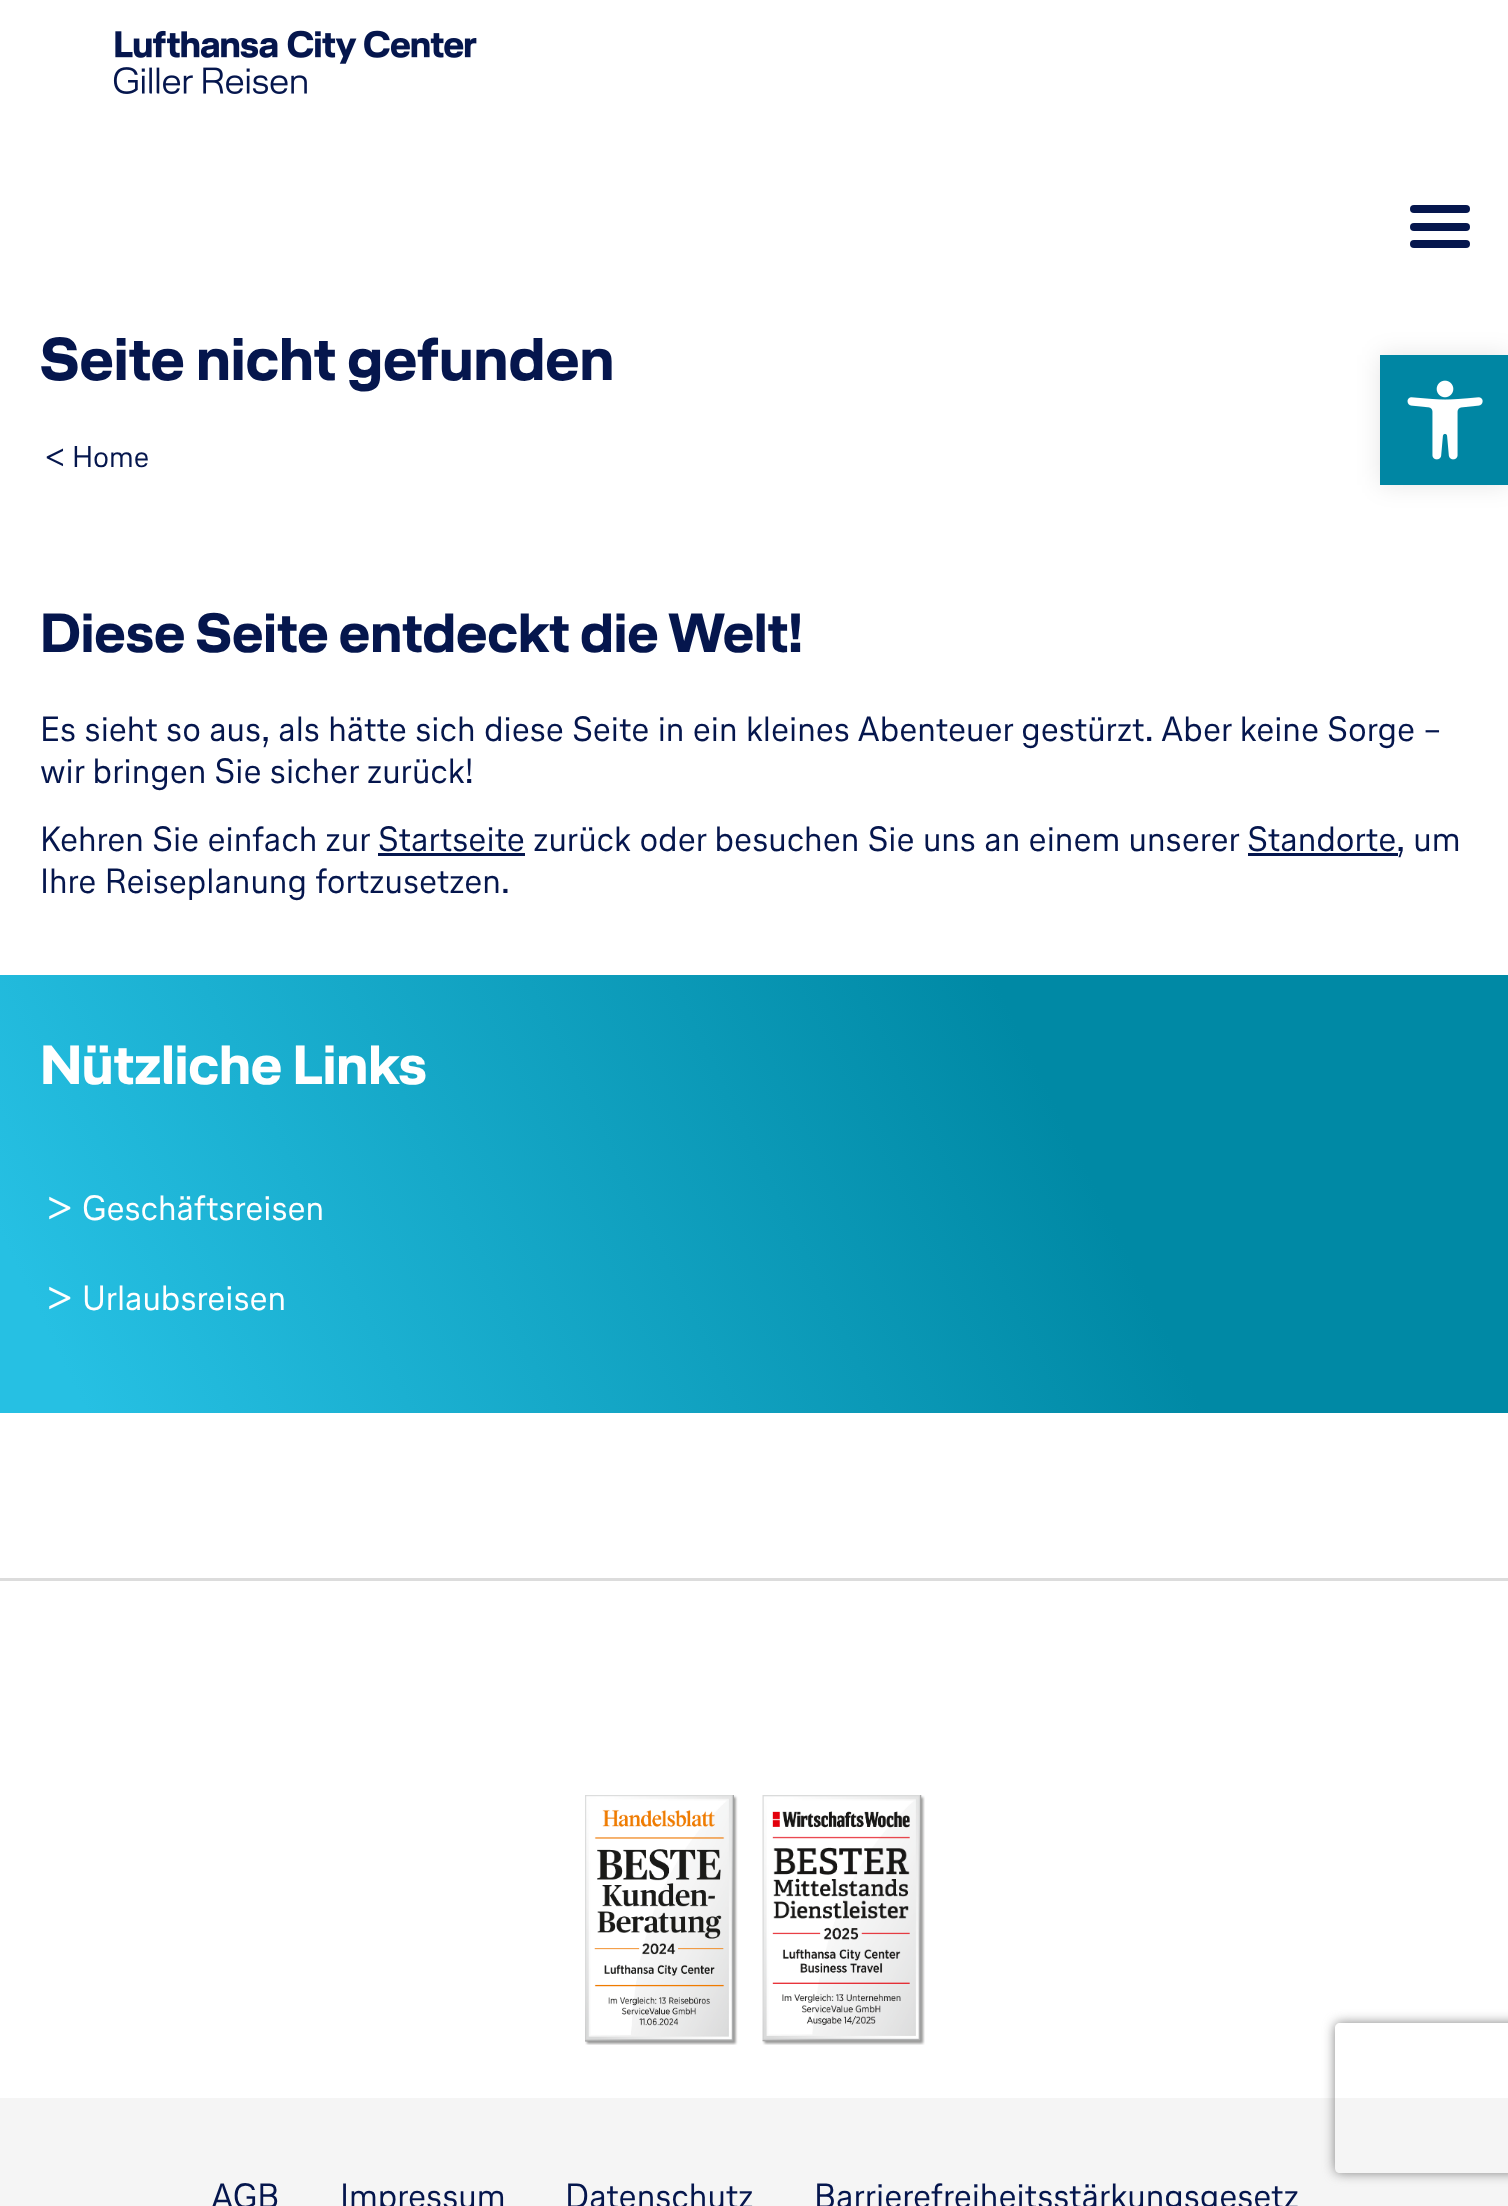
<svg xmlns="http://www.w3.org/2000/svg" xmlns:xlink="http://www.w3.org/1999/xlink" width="1508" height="2206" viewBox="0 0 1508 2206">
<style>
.cls-1{font:bold 60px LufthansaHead;fill:#05164d}
.cls-2{font:bold 35px Liberation Serif;letter-spacing:-10px;fill:#05164d}
.cls-3{font:30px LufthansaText;fill:#05164d}
.cls-4{font:bold 55px LufthansaHead;fill:#05164d}
.cls-5{font:35px LufthansaText;fill:#05164d}
.cls-6{font:bold 55px LufthansaHead;fill:#ffffff}
.cls-7{font:bold 45px Liberation Serif;letter-spacing:-14px;fill:#ffffff}
.cls-8{font:35px LufthansaText;fill:#ffffff}
</style>
<defs>
<linearGradient id="g1" gradientUnits="userSpaceOnUse" x1="1451" y1="854" x2="59" y2="1533"><stop offset="0.3" stop-color="#0089a5"/><stop offset="0.95" stop-color="#26c0e3"/></linearGradient>
<clipPath id="clip1"><path d="M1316 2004H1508V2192H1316ZM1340 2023H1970C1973 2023 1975 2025 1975 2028V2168C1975 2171 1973 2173 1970 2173H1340C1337 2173 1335 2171 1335 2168V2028C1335 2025 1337 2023 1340 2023Z" clip-rule="evenodd"/></clipPath>
</defs>
<rect width="100%" height="100%" fill="#ffffff"/>
<rect fill="#000000" fill-opacity="0.1" filter="blur(12.5px)" x="1380" y="355" width="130" height="130"/>
<rect fill="#0086a3" x="1380" y="355" width="128" height="130"/>
<image xlink:href="image0.png" x="1407" y="380" width="76" height="80"/>
<image xlink:href="image1.png" x="113" y="30" width="364" height="64"/>
<rect fill="#05164d" x="1410" y="205" width="60" height="8" rx="4"/>
<rect fill="#05164d" x="1410" y="223" width="60" height="8" rx="4"/>
<rect fill="#05164d" x="1410" y="240" width="60" height="8" rx="4"/>
<rect fill="#05164d" x="378" y="853" width="147" height="3"/>
<rect fill="#05164d" x="1248" y="853" width="150" height="3"/>
<rect fill="url(#g1)" x="0" y="975" width="1508" height="438"/>
<rect fill="#dcdcdc" x="0" y="1578" width="1508" height="3"/>
<image xlink:href="image2.png" x="585" y="1795" width="153" height="250"/>
<image xlink:href="image3.png" x="762" y="1795" width="163" height="250"/>
<rect fill="#f5f5f5" x="0" y="2098" width="1508" height="108"/>
<g clip-path="url(#clip1)">
<rect fill="#808080" filter="blur(6px)" x="1335" y="2023" width="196" height="150" rx="5"/>
</g>
<text class="cls-1" x="40" y="380">Seite nicht gefunden</text>
<text class="cls-2" x="45" y="469">˂</text>
<text class="cls-3" x="72" y="467">Home</text>
<text class="cls-4" x="40" y="652">Diese Seite entdeckt die Welt!</text>
<text class="cls-5"><tspan x="40" y="741">Es sieht so aus, als hätte sich diese Seite in ein kleines Abenteuer gestürzt. Aber keine Sorge –</tspan><tspan x="40" y="783">wir bringen Sie sicher zurück!</tspan><tspan x="40" y="851">Kehren Sie einfach zur Startseite zurück oder besuchen Sie uns an einem unserer Standorte, um</tspan><tspan x="40" y="893">Ihre Reiseplanung fortzusetzen.</tspan></text>
<text class="cls-6" x="40" y="1084">Nützliche Links</text>
<text class="cls-7" x="47" y="1223">˃</text>
<text class="cls-8" x="82" y="1220">Geschäftsreisen</text>
<text class="cls-7" x="47" y="1313">˃</text>
<text class="cls-8" x="82" y="1310">Urlaubsreisen</text>
<text class="cls-5" x="211" y="2208">AGB</text>
<text class="cls-5" x="340" y="2208">Impressum</text>
<text class="cls-5" x="565" y="2208">Datenschutz</text>
<text class="cls-5" x="814" y="2208">Barrierefreiheitsstärkungsgesetz</text>
</svg>
